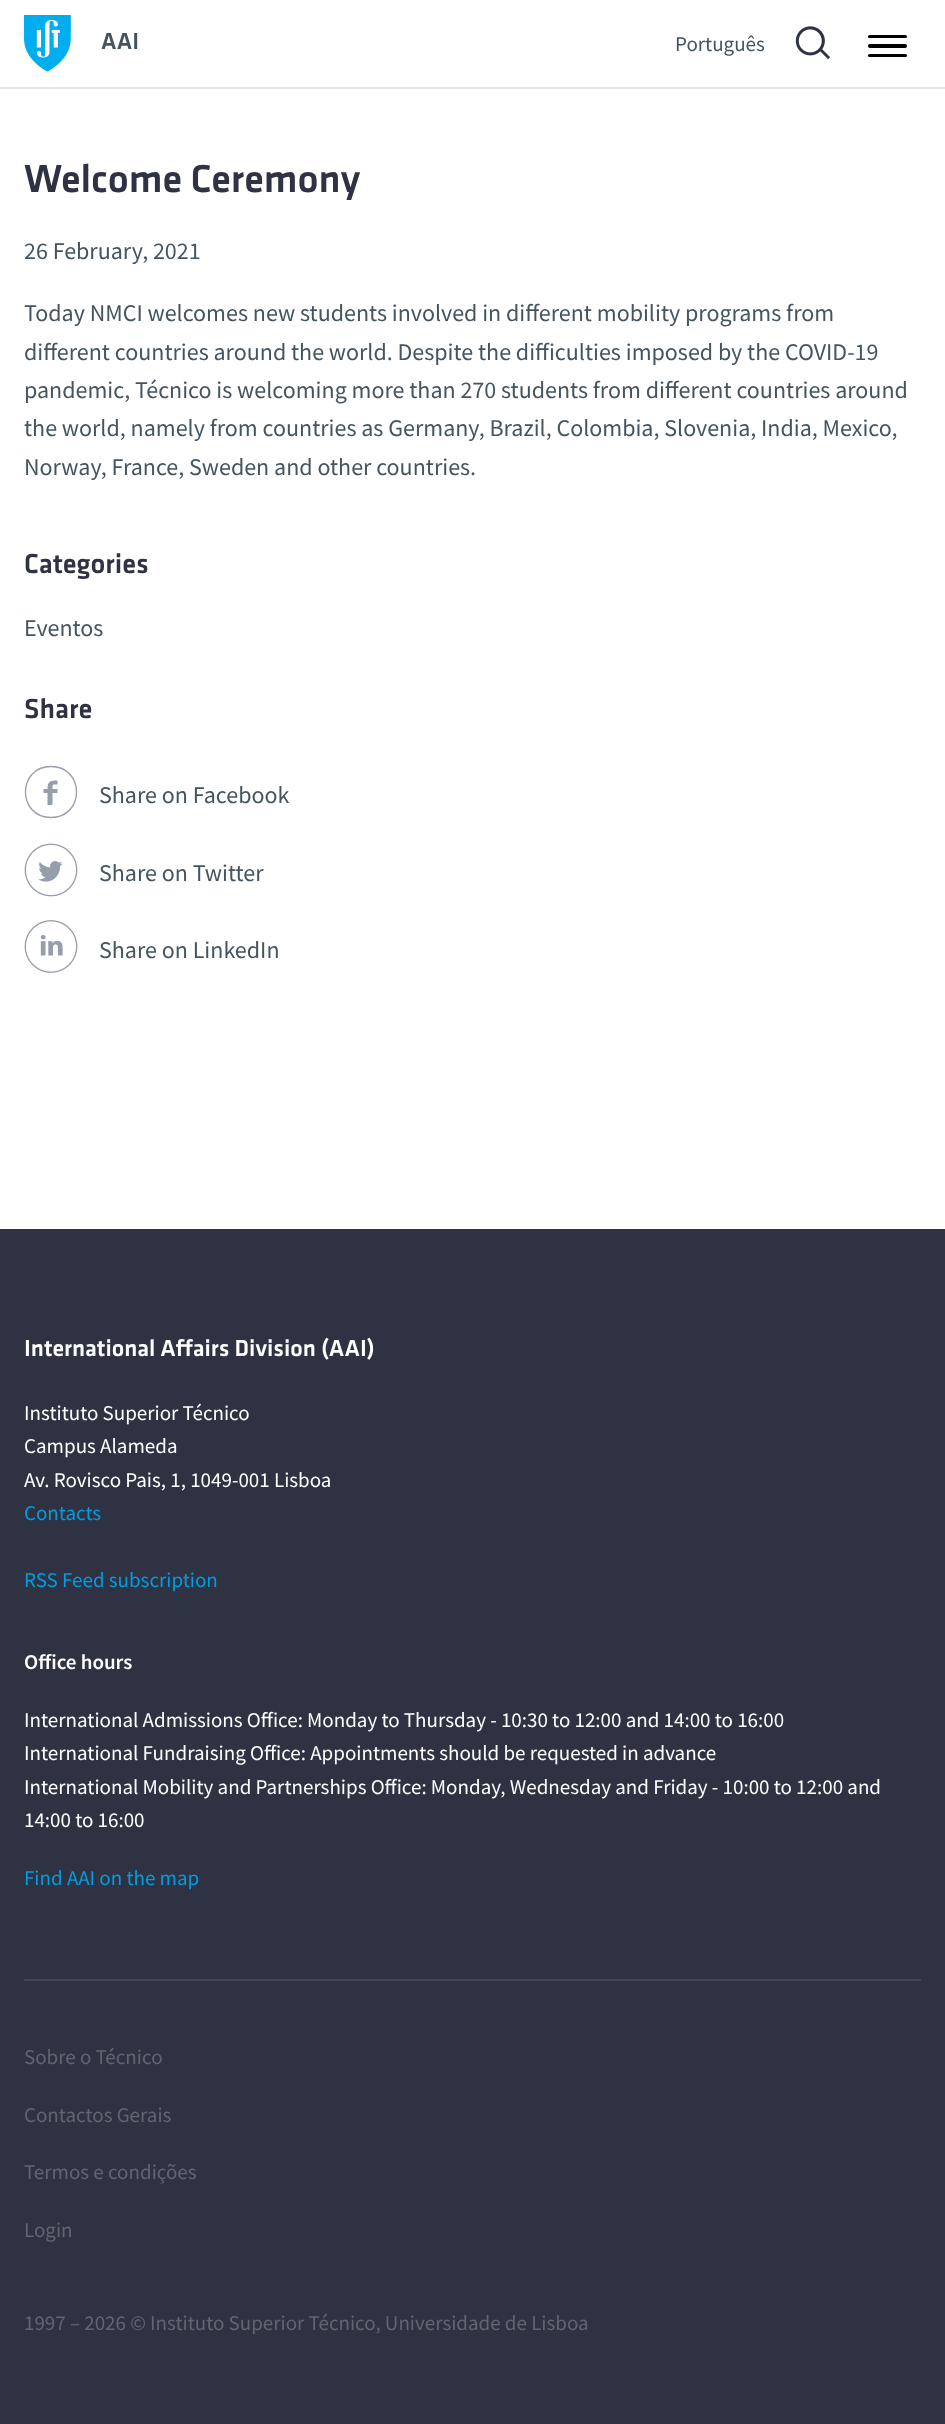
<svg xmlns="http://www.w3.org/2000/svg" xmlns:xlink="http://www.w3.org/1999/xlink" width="945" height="2424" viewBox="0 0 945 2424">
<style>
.cls-1{font:500 24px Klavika;fill:#45555f}
.cls-2{font:21px Source Sans Pro;fill:#45555f}
.cls-3{font:500 40.5px Klavika;fill:#2e3242}
.cls-4{font:24px Source Sans Pro;fill:#45555f}
.cls-5{font:500 28.5px Klavika;fill:#2e3242}
.cls-6{font:500 24px Klavika;fill:#ffffff}
.cls-7{font:21px Source Sans Pro;fill:#ffffff}
.cls-8{font:21px Source Sans Pro;fill:#009de0}
.cls-9{font:600 21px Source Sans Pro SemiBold;fill:#ffffff}
.cls-10{font:21px Source Sans Pro;fill:#626571}
</style>
<rect width="100%" height="100%" fill="#ffffff"/>
<rect fill="#e6e6e6" x="0" y="87" width="945" height="2"/>
<image xlink:href="image0.png" x="24" y="15" width="47" height="57"/>
<image xlink:href="image1.png" x="795" y="26" width="35" height="34"/>
<rect fill="#000000" x="868" y="35" width="39" height="3" rx="1.5"/>
<rect fill="#000000" x="868" y="44" width="39" height="4" rx="2"/>
<rect fill="#000000" x="868" y="54" width="39" height="3" rx="1.5"/>
<path fill="none" stroke="#969dab" stroke-width="1.3" d="M51 766.5C17 766.5 17 817.5 51 817.5C85 817.5 85 766.5 51 766.5Z"/>
<path fill="#969dab" fill-rule="evenodd" d="M57.5 784.5C52.5 784.5 52.5 784 52.5 789H57.5V793H52.5V805H47.5V793H43.5V789H47.5C47.5 781 50.5 780.5 57.5 780.5Z"/>
<image xlink:href="image2.png" x="24" y="843" width="54" height="54"/>
<image xlink:href="image3.png" x="24" y="920" width="54" height="53"/>
<rect fill="#2e3242" x="0" y="1229" width="945" height="1195"/>
<rect fill="#434755" x="24" y="1979" width="897" height="2"/>
<text class="cls-1" x="101" y="49">AAI</text>
<text class="cls-2" x="675" y="51">Português</text>
<text class="cls-3" x="24" y="192">Welcome Ceremony</text>
<text class="cls-4" x="24" y="259">26 February, 2021</text>
<text class="cls-4"><tspan x="24" y="321">Today NMCI welcomes new students involved in different mobility programs from</tspan><tspan x="24" y="360">different countries around the world. Despite the difficulties imposed by the COVID-19</tspan><tspan x="24" y="398">pandemic, Técnico is welcoming more than 270 students from different countries around</tspan><tspan x="24" y="436">the world, namely from countries as Germany, Brazil, Colombia, Slovenia, India, Mexico,</tspan><tspan x="24" y="475">Norway, France, Sweden and other countries.</tspan></text>
<text class="cls-5" x="24" y="573">Categories</text>
<text class="cls-4" x="24" y="636">Eventos</text>
<text class="cls-5" x="24" y="718">Share</text>
<text class="cls-4" x="99" y="803">Share on Facebook</text>
<text class="cls-4" x="99" y="881">Share on Twitter</text>
<text class="cls-4" x="99" y="958">Share on LinkedIn</text>
<text class="cls-6" x="24" y="1356">International Affairs Division (AAI)</text>
<text class="cls-7"><tspan x="24" y="1420">Instituto Superior Técnico</tspan><tspan x="24" y="1453">Campus Alameda</tspan><tspan x="24" y="1487">Av. Rovisco Pais, 1, 1049-001 Lisboa</tspan></text>
<text class="cls-8" x="24" y="1520">Contacts</text>
<text class="cls-8" x="24" y="1587">RSS Feed subscription</text>
<text class="cls-9" x="24" y="1669">Office hours</text>
<text class="cls-7"><tspan x="24" y="1727">International Admissions Office: Monday to Thursday - 10:30 to 12:00 and 14:00 to 16:00</tspan><tspan x="24" y="1760">International Fundraising Office: Appointments should be requested in advance</tspan><tspan x="24" y="1794">International Mobility and Partnerships Office: Monday, Wednesday and Friday - 10:00 to 12:00 and</tspan><tspan x="24" y="1827">14:00 to 16:00</tspan></text>
<text class="cls-8" x="24" y="1885">Find AAI on the map</text>
<text class="cls-10" x="24" y="2064">Sobre o Técnico</text>
<text class="cls-10" x="24" y="2122">Contactos Gerais</text>
<text class="cls-10" x="24" y="2179">Termos e condições</text>
<text class="cls-10" x="24" y="2237">Login</text>
<text class="cls-10" x="24" y="2330">1997 – 2026 © Instituto Superior Técnico, Universidade de Lisboa</text>
</svg>
